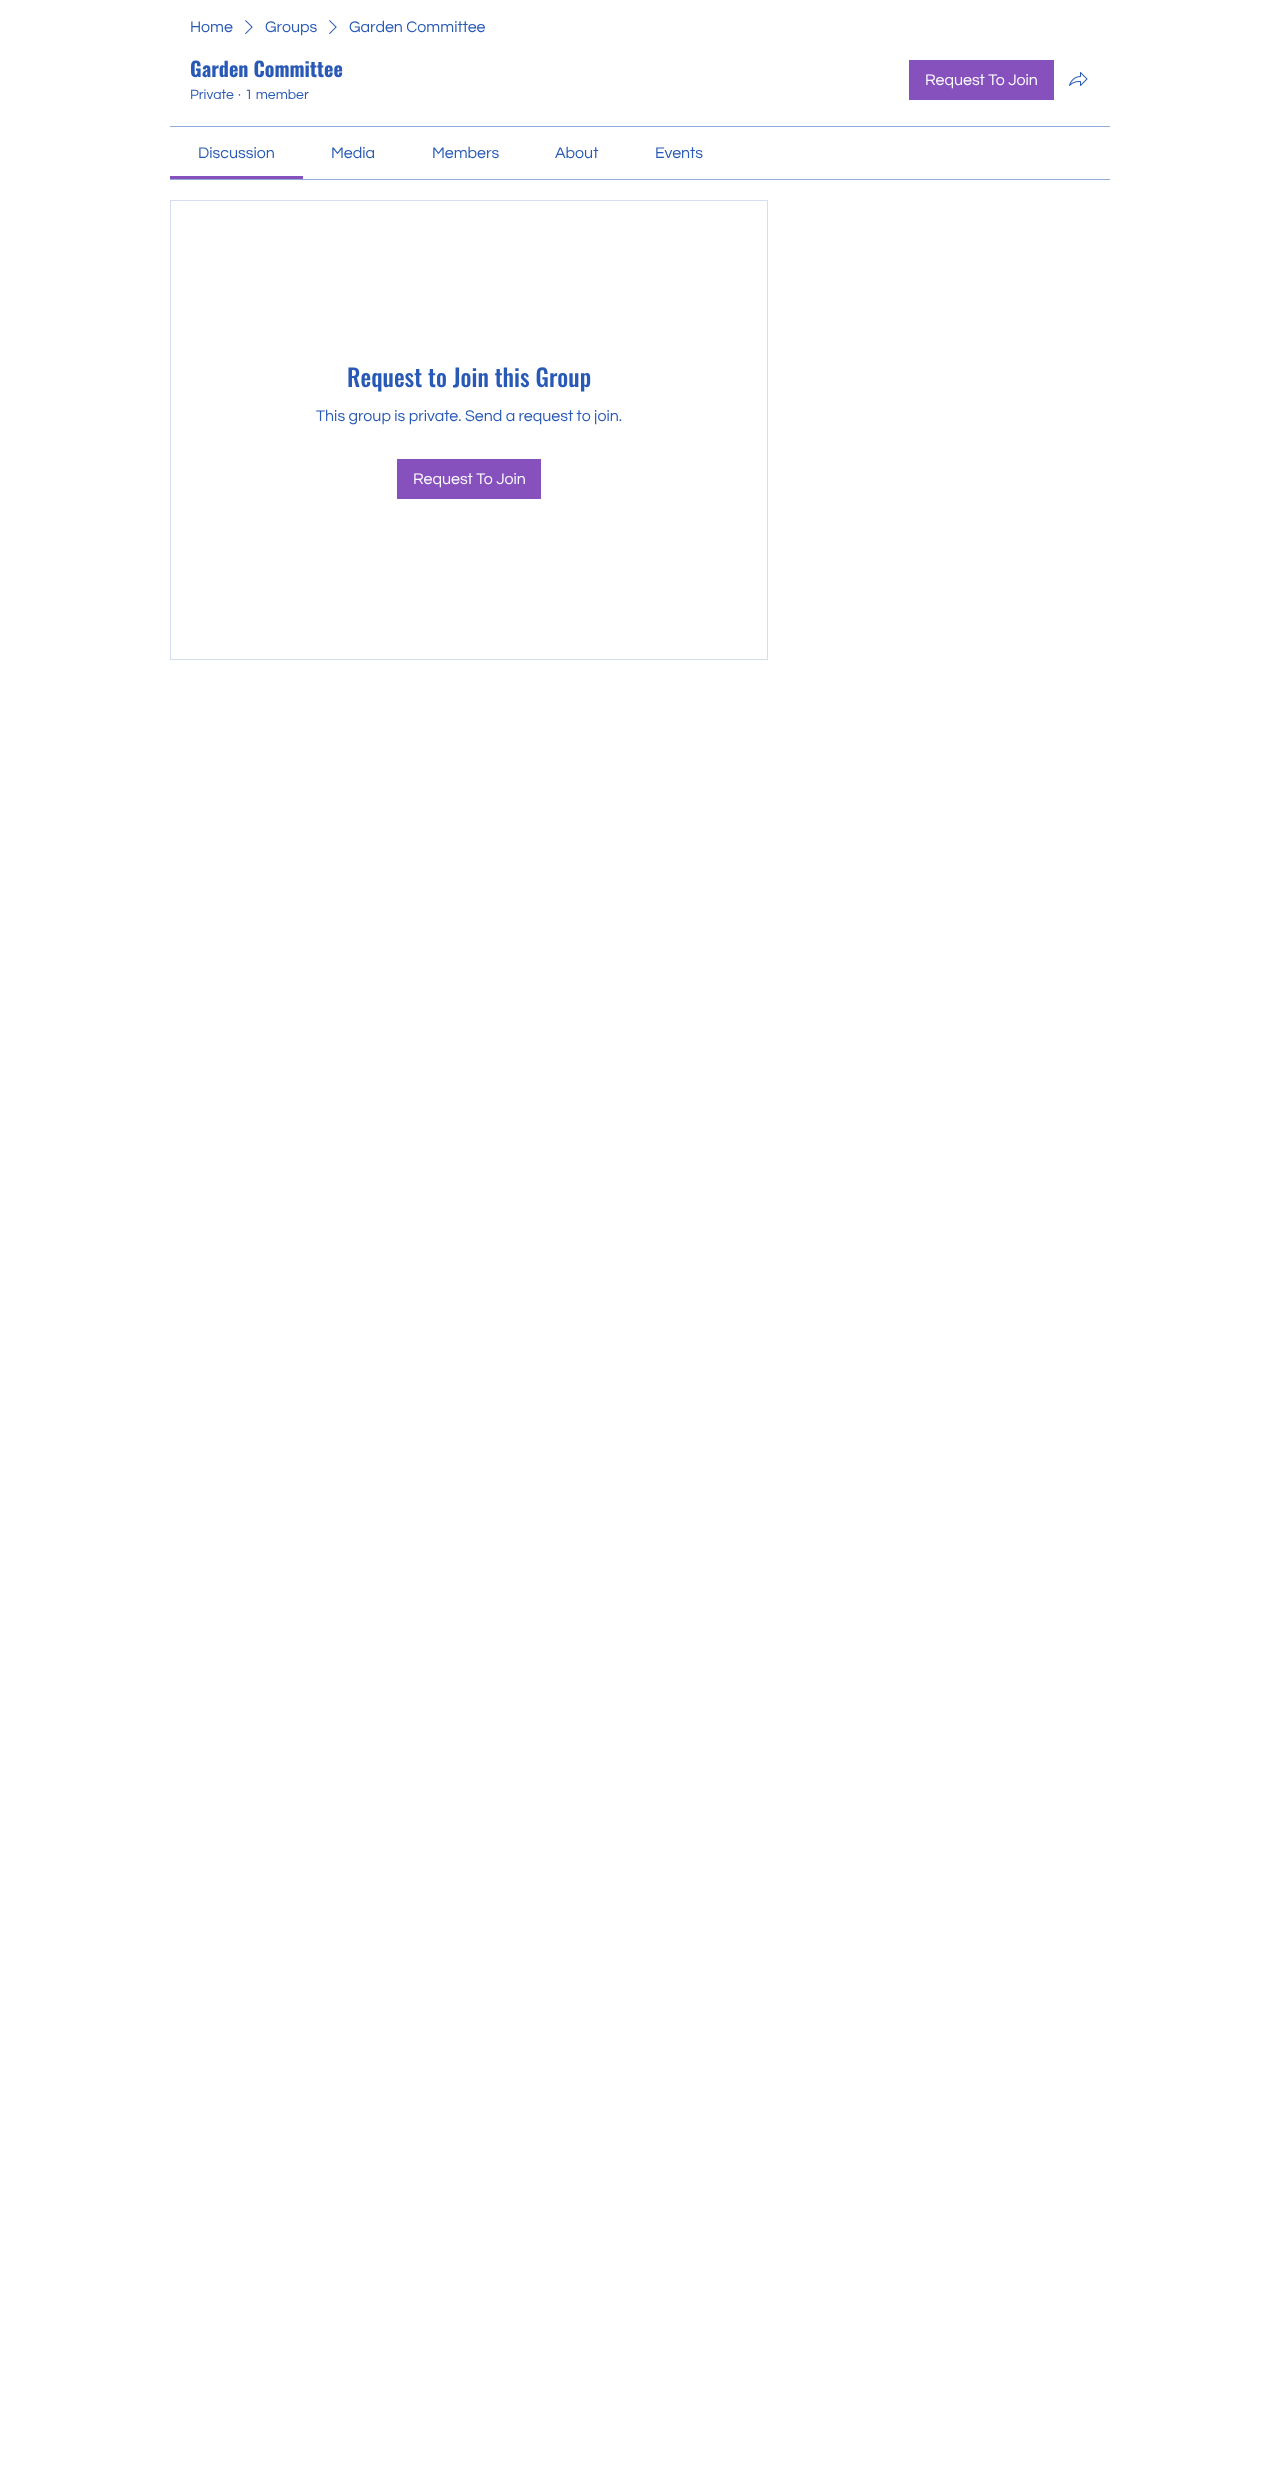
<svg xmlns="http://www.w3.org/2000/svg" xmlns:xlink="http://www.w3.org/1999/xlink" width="1280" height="2477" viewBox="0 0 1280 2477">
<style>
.cls-1{font:16px Questrial;fill:#2859b6}
.cls-2{font:bold 20px Oswald;fill:#2859b6}
.cls-3{font:14px Questrial;fill:#2859b6}
.cls-4{font:16px Questrial;fill:#ffffff}
.cls-5{font:500 24px Oswald;fill:#2859b6}
</style>
<rect width="100%" height="100%" fill="#ffffff"/>
<image xlink:href="image0.png" x="245" y="20" width="8" height="14"/>
<image xlink:href="image0.png" x="329" y="20" width="8" height="14"/>
<rect fill="#8751bd" x="909" y="60" width="145" height="40"/>
<image xlink:href="image1.png" x="1069" y="72" width="19" height="14"/>
<rect fill="#94acdb" x="170" y="126" width="940" height="1"/>
<rect fill="#94acdb" x="170" y="179" width="940" height="1"/>
<rect fill="#8751bd" x="170" y="176" width="133" height="3"/>
<rect fill="none" stroke="#d4def0" x="170.5" y="200.5" width="597" height="459"/>
<rect fill="#8751bd" x="397" y="459" width="144" height="40"/>
<text class="cls-1" x="190" y="32">Home</text>
<text class="cls-1" x="265" y="32">Groups</text>
<text class="cls-1" x="349" y="32">Garden Committee</text>
<text class="cls-2" x="190" y="77">Garden Committee</text>
<text class="cls-3" x="190" y="99">Private</text>
<text class="cls-3" x="238" y="99">·</text>
<text class="cls-3" x="245" y="99">1 member</text>
<text class="cls-4" x="925" y="85">Request To Join</text>
<text class="cls-1" x="198" y="158">Discussion</text>
<text class="cls-1" x="331" y="158">Media</text>
<text class="cls-1" x="432" y="158">Members</text>
<text class="cls-1" x="555" y="158">About</text>
<text class="cls-1" x="655" y="158">Events</text>
<text class="cls-5" x="347" y="387">Request to Join this Group</text>
<text class="cls-1" x="316" y="421">This group is private. Send a request to join.</text>
<text class="cls-4" x="413" y="484">Request To Join</text>
</svg>
